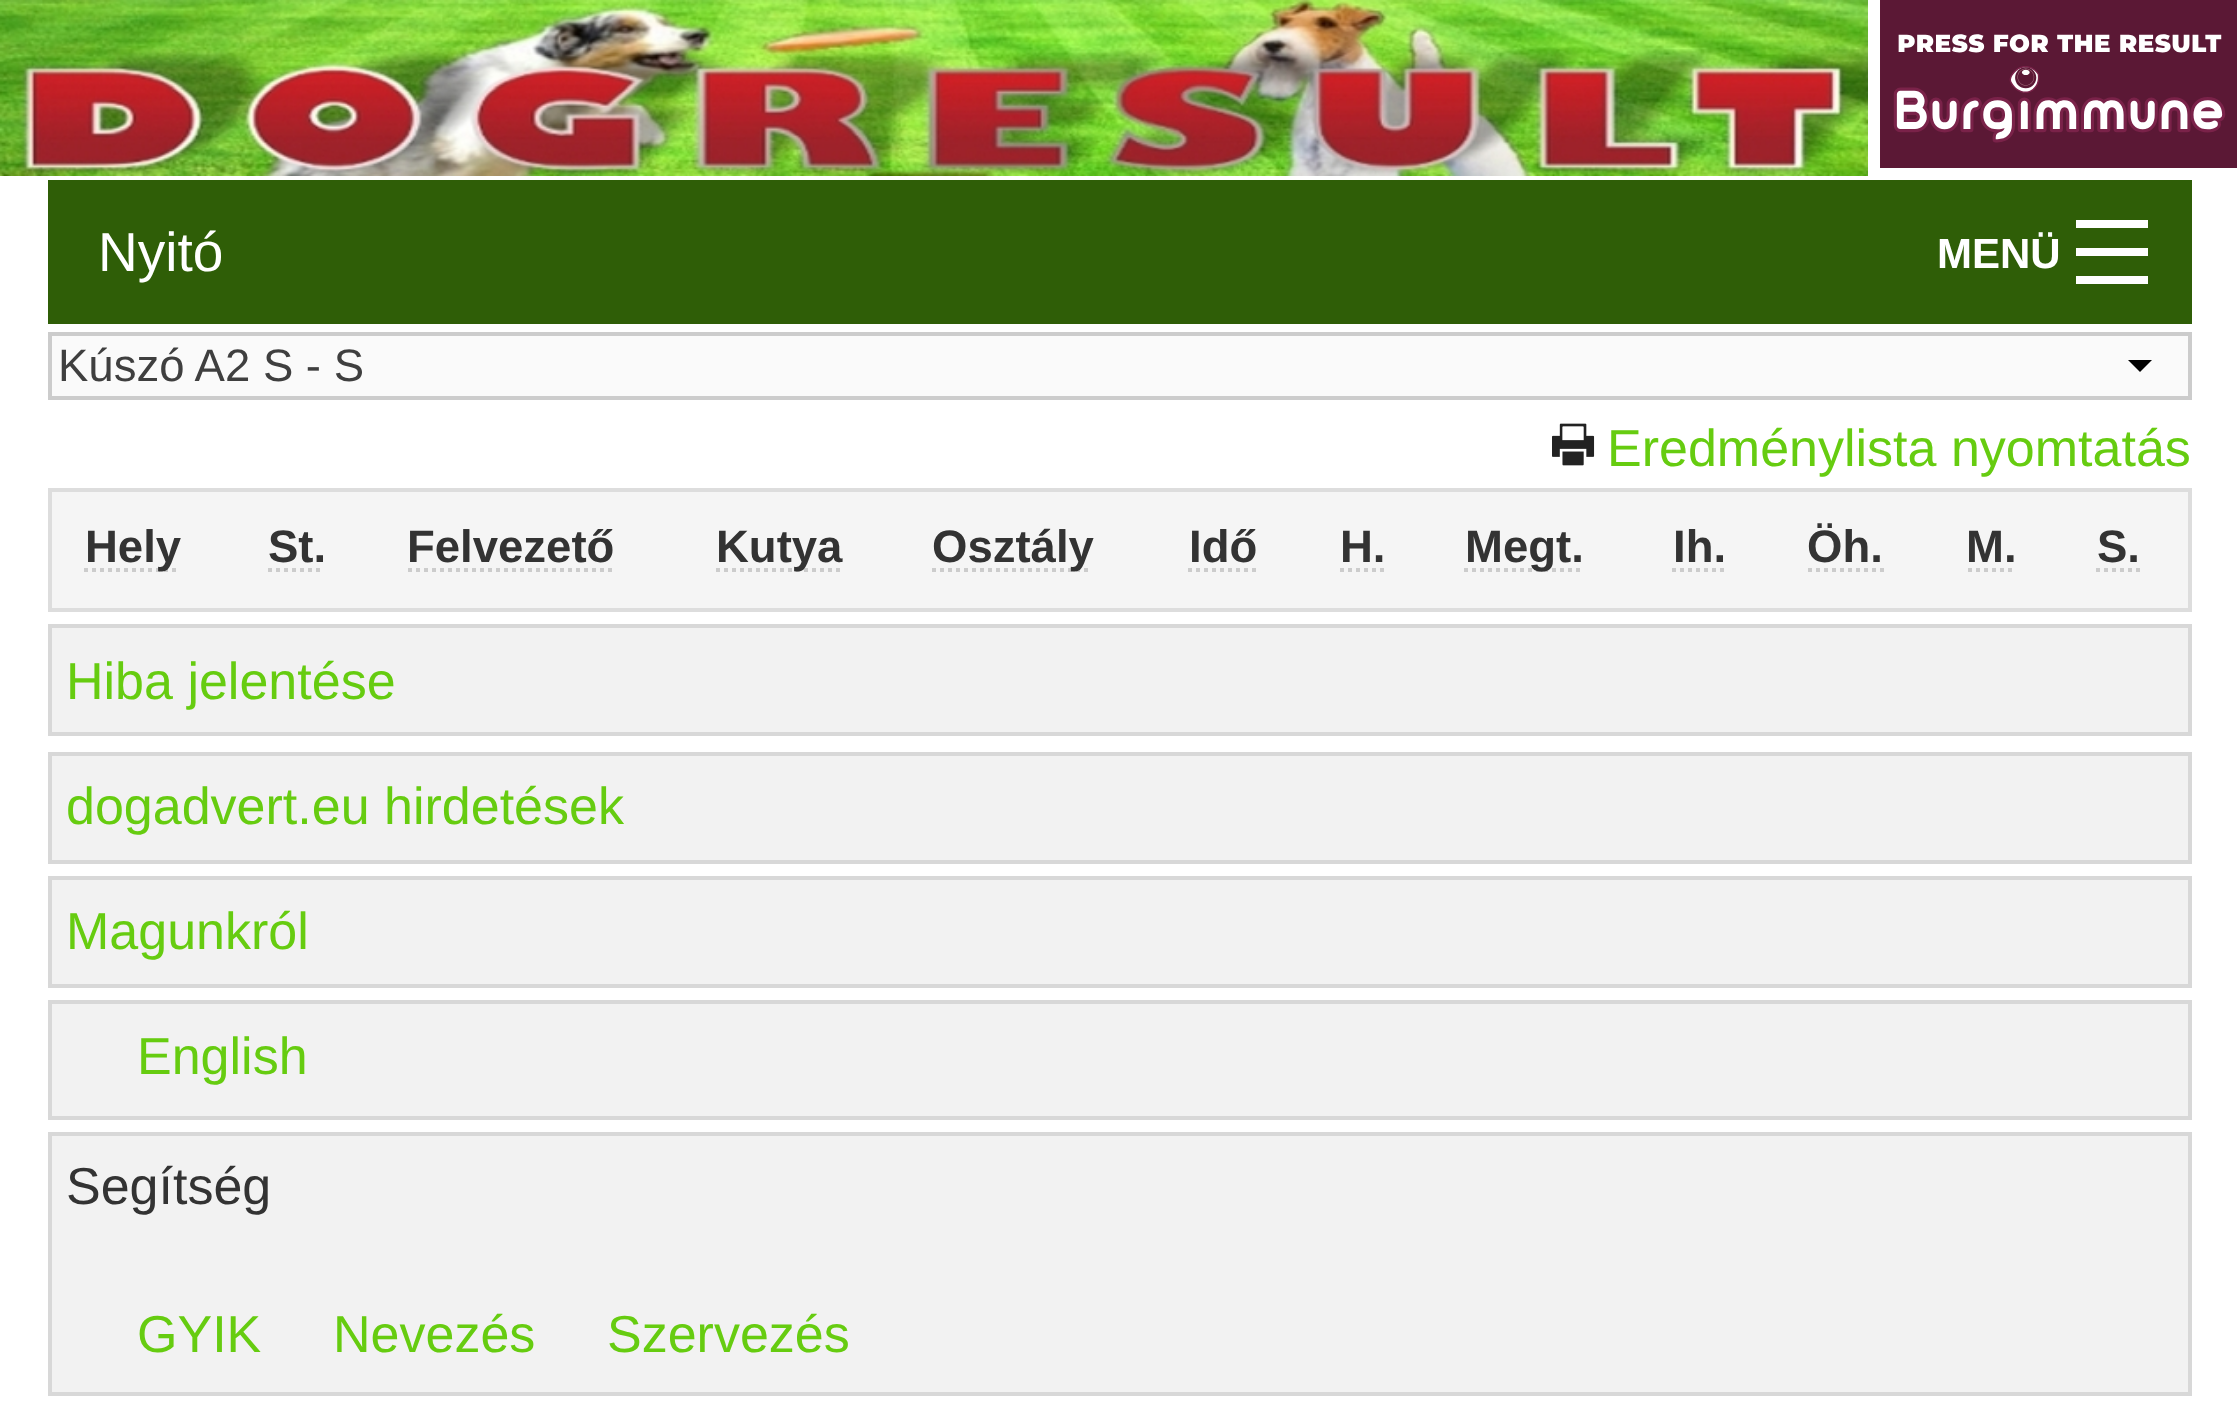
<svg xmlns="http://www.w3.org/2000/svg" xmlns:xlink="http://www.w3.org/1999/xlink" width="2237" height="1407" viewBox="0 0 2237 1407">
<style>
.cls-1{font:55px Liberation Sans;fill:#ffffff}
.cls-2{font:bold 42px Liberation Sans;fill:#ffffff}
.cls-3{font:45.5px Liberation Sans;fill:#3f3f3f}
.cls-4{font:52px Liberation Sans;fill:#66cc10}
.cls-5{font:bold 45.5px Liberation Sans;fill:#333333}
.cls-6{font:52px Liberation Sans;fill:#333333}
</style>
<rect width="100%" height="100%" fill="#ffffff"/>
<image xlink:href="image0.png" x="0" y="0" width="1868" height="176"/>
<image xlink:href="image1.png" x="1880" y="0" width="357" height="168"/>
<rect fill="#2f5e07" x="48" y="180" width="2144" height="144"/>
<rect fill="#ffffff" x="2076" y="276" width="72" height="8"/>
<rect fill="#ffffff" x="2076" y="248" width="72" height="8"/>
<rect fill="#ffffff" x="2076" y="220" width="72" height="8"/>
<rect fill="#fafafa" x="52" y="336" width="2136" height="60"/>
<path fill="#000000" d="M2152 360L2140 372L2128 360Z"/>
<rect fill="none" stroke="#cccccc" stroke-width="4" x="50" y="334" width="2140" height="64"/>
<image xlink:href="image2.png" x="1552" y="423" width="43" height="43"/>
<rect fill="#dddddd" x="48" y="488" width="2144" height="4"/>
<rect fill="#dddddd" x="2188" y="488" width="4" height="124"/>
<rect fill="#dddddd" x="48" y="608" width="2144" height="4"/>
<rect fill="#dddddd" x="48" y="488" width="4" height="124"/>
<rect fill="#f5f5f5" x="52" y="492" width="2136" height="116"/>
<path fill="none" stroke="#cccccc" stroke-width="4" stroke-dasharray="4 4" d="M84 570H180"/>
<path fill="none" stroke="#cccccc" stroke-width="4" stroke-dasharray="4 4" d="M268 570H324"/>
<path fill="none" stroke="#cccccc" stroke-width="4" stroke-dasharray="4 4" d="M408 570H616"/>
<path fill="none" stroke="#cccccc" stroke-width="4" stroke-dasharray="4 4" d="M716 570H840"/>
<path fill="none" stroke="#cccccc" stroke-width="4" stroke-dasharray="4 4" d="M932 570H1092"/>
<path fill="none" stroke="#cccccc" stroke-width="4" stroke-dasharray="4 4" d="M1188 570H1256"/>
<path fill="none" stroke="#cccccc" stroke-width="4" stroke-dasharray="4 4" d="M1340 570H1384"/>
<path fill="none" stroke="#cccccc" stroke-width="4" stroke-dasharray="4 4" d="M1464 570H1584"/>
<path fill="none" stroke="#cccccc" stroke-width="4" stroke-dasharray="4 4" d="M1672 570H1728"/>
<path fill="none" stroke="#cccccc" stroke-width="4" stroke-dasharray="4 4" d="M1808 570H1884"/>
<path fill="none" stroke="#cccccc" stroke-width="4" stroke-dasharray="4 4" d="M1968 570H2016"/>
<path fill="none" stroke="#cccccc" stroke-width="4" stroke-dasharray="4 4" d="M2096 570H2140"/>
<rect fill="#f2f2f2" stroke="#d8d8d8" stroke-width="4" x="50" y="626" width="2140" height="108"/>
<rect fill="#f2f2f2" stroke="#d8d8d8" stroke-width="4" x="50" y="754" width="2140" height="108"/>
<rect fill="#f2f2f2" stroke="#d8d8d8" stroke-width="4" x="50" y="878" width="2140" height="108"/>
<rect fill="#f2f2f2" stroke="#d8d8d8" stroke-width="4" x="50" y="1002" width="2140" height="116"/>
<rect fill="#f2f2f2" stroke="#d8d8d8" stroke-width="4" x="50" y="1134" width="2140" height="260"/>
<text class="cls-1" x="98" y="271">Nyitó</text>
<text class="cls-2" x="1937" y="268">MENÜ</text>
<text class="cls-3" x="58" y="381">Kúszó A2 S - S</text>
<text class="cls-4" x="1607" y="466">Eredménylista nyomtatás</text>
<text class="cls-5" x="85" y="562">Hely</text>
<text class="cls-5" x="268" y="562">St.</text>
<text class="cls-5" x="407" y="562">Felvezető</text>
<text class="cls-5" x="716" y="562">Kutya</text>
<text class="cls-5" x="932" y="562">Osztály</text>
<text class="cls-5" x="1189" y="562">Idő</text>
<text class="cls-5" x="1340" y="562">H.</text>
<text class="cls-5" x="1465" y="562">Megt.</text>
<text class="cls-5" x="1673" y="562">Ih.</text>
<text class="cls-5" x="1807" y="562">Öh.</text>
<text class="cls-5" x="1966" y="562">M.</text>
<text class="cls-5" x="2097" y="562">S.</text>
<text class="cls-4" x="66" y="699">Hiba jelentése</text>
<text class="cls-4" x="66" y="824">dogadvert.eu hirdetések</text>
<text class="cls-4" x="66" y="949">Magunkról</text>
<text class="cls-4" x="137" y="1074">English</text>
<text class="cls-6" x="66" y="1204">Segítség</text>
<text class="cls-4" x="137" y="1352">GYIK</text>
<text class="cls-4" x="333" y="1352">Nevezés</text>
<text class="cls-4" x="607" y="1352">Szervezés</text>
</svg>
